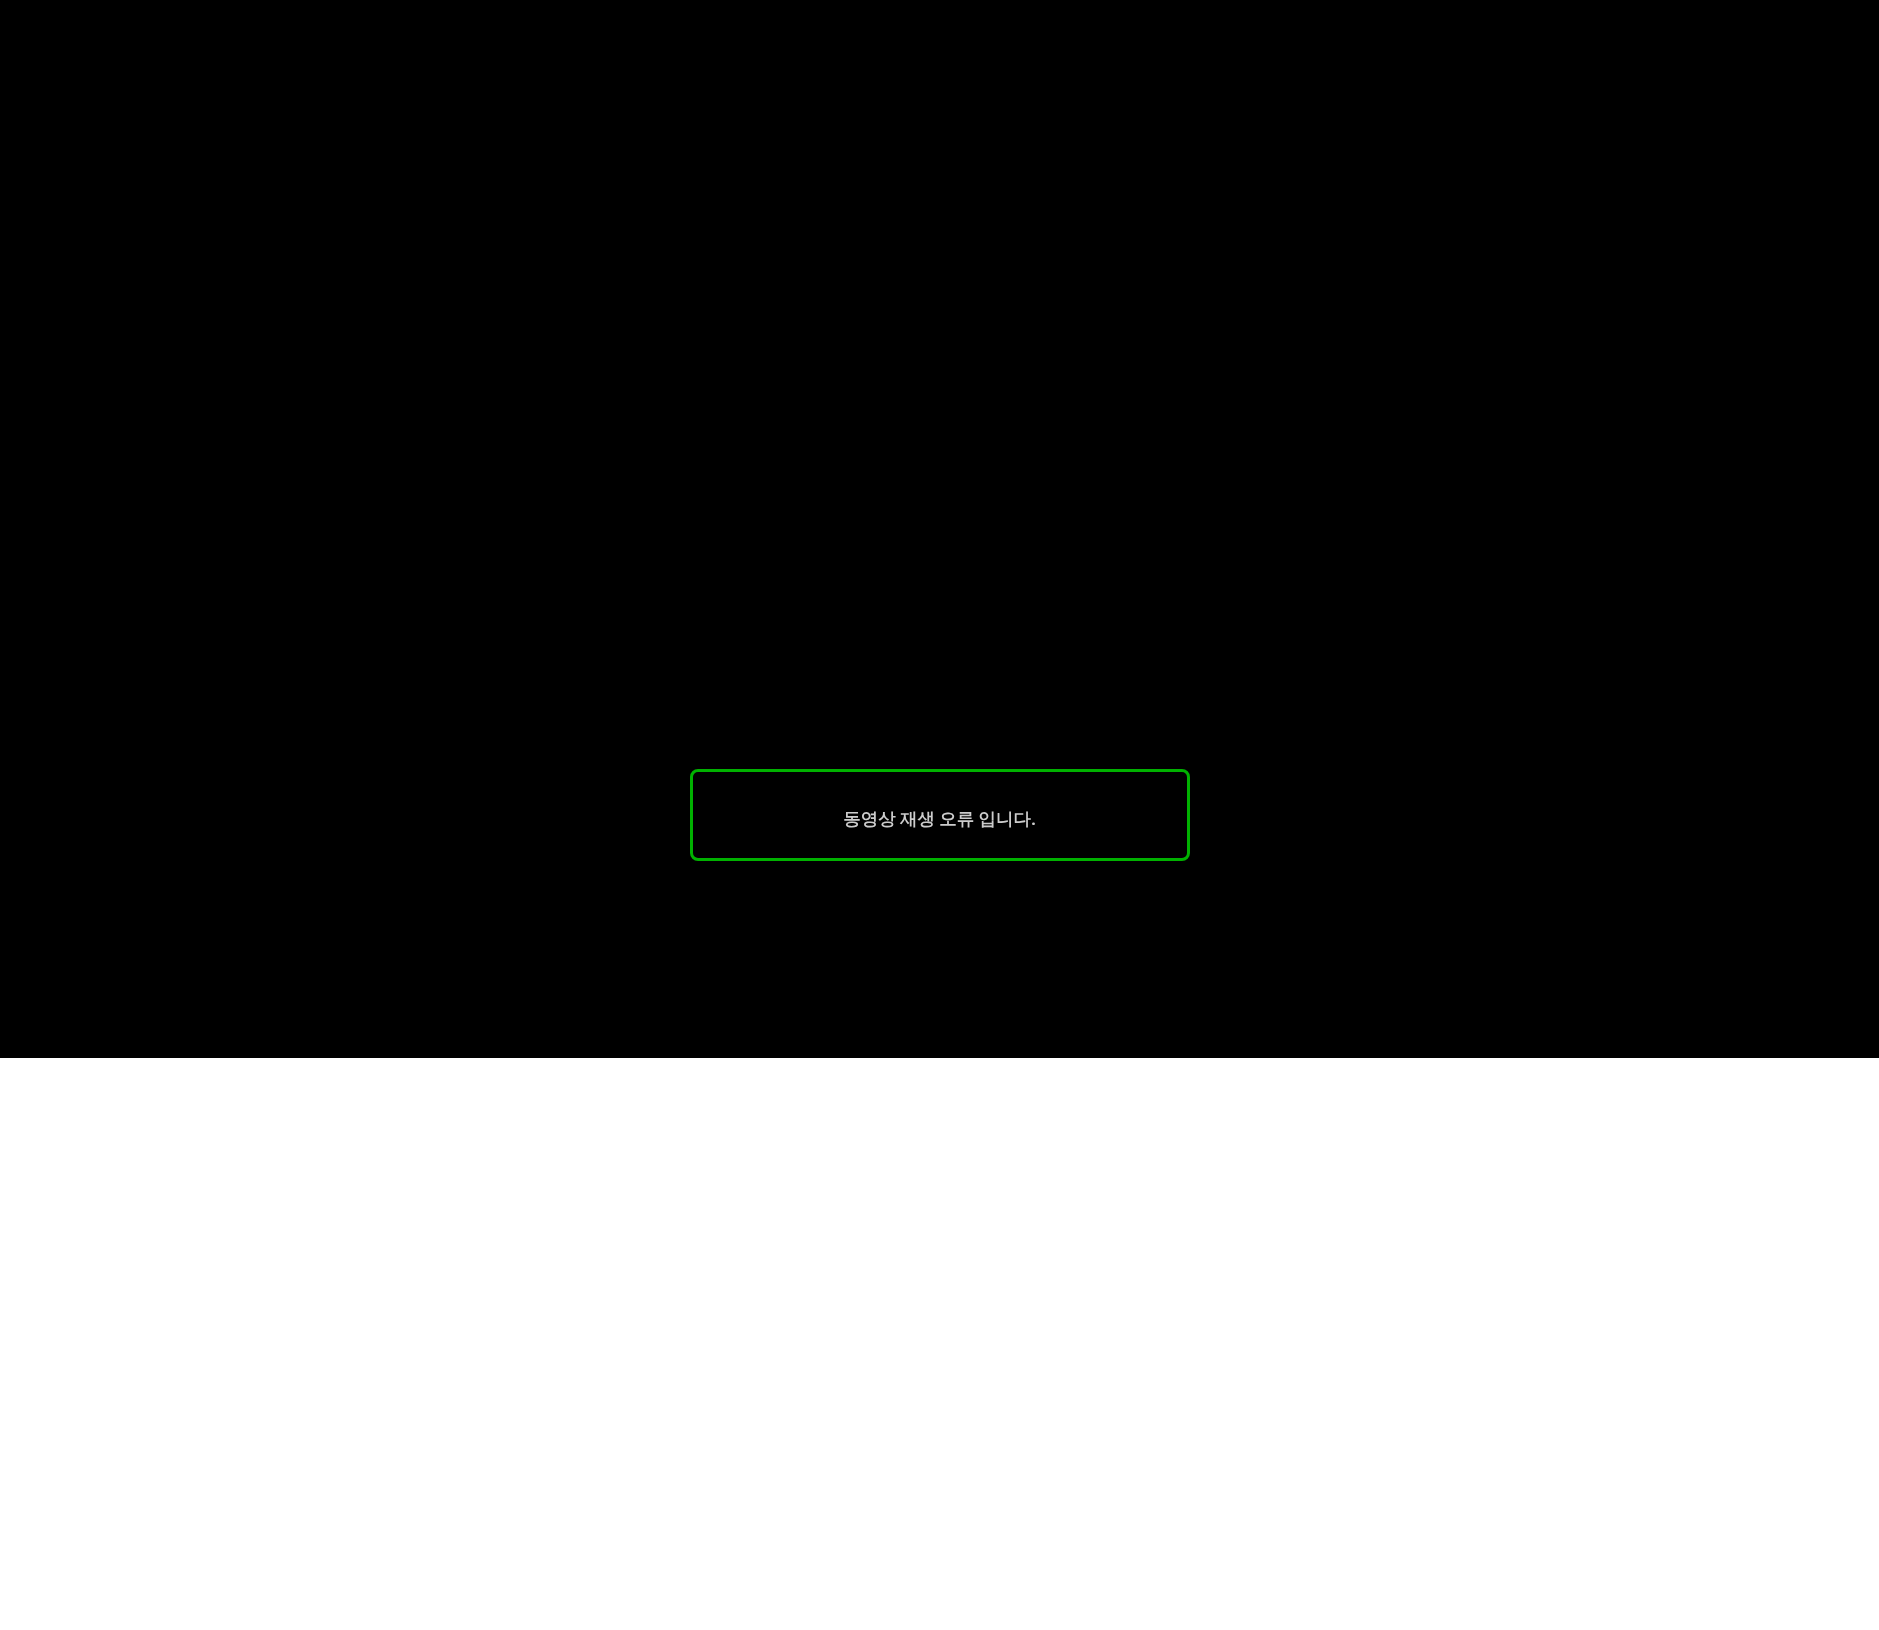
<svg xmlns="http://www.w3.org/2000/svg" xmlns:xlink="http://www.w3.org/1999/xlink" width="1879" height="1630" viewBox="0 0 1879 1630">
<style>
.cls-1{font:bold 17.5px WenQuanYi Zen Hei;fill:#cccccc}
.cls-2{font:bold 17.5px Roboto;fill:#cccccc}
</style>
<rect width="100%" height="100%" fill="#ffffff"/>
<rect fill="#000000" x="0" y="0" width="1879" height="1058"/>
<rect fill="none" stroke="#00b100" stroke-width="3" x="691.5" y="770.5" width="497" height="89" rx="6.5"/>
<text class="cls-1" x="843" y="825" word-spacing="-1">동영상 재생 오류 입니다</text>
<text class="cls-2" x="1031" y="825">.</text>
</svg>
